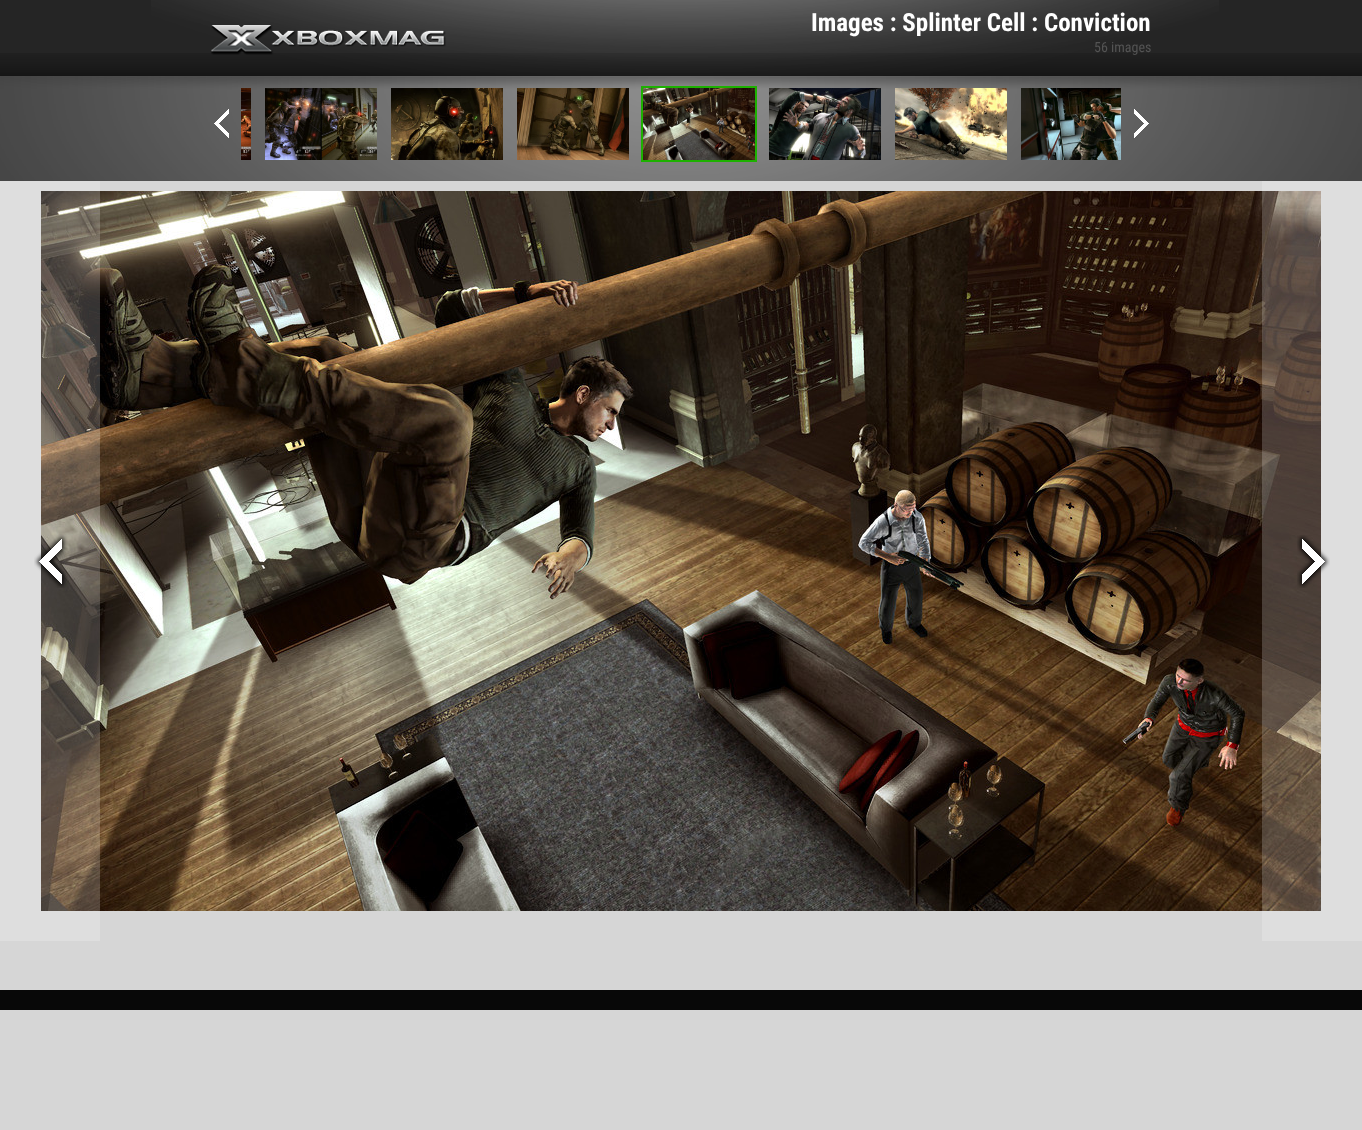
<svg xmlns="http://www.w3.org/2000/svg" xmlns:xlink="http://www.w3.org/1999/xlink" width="1362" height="1130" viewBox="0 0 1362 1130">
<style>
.cls-1{font:bold 25px Roboto Condensed;fill:#ffffff}
.cls-2{font:14px Roboto Condensed;fill:#545454}
</style>
<rect width="100%" height="100%" fill="#d6d6d6"/>
<rect fill="#252525" x="0" y="0" width="1362" height="53"/>
<image xlink:href="image0.png" x="0" y="53" width="1362" height="23"/>
<image xlink:href="image1.png" x="151" y="0" width="1068" height="76"/>
<image xlink:href="image2.png" x="211" y="25" width="235" height="30"/>
<rect fill="#414141" x="0" y="76" width="1362" height="105"/>
<image xlink:href="image3.png" x="0" y="76" width="1362" height="105"/>
<image xlink:href="image4.png" x="214" y="109" width="15" height="29"/>
<image xlink:href="image5.png" x="241" y="88" width="10" height="72"/>
<image xlink:href="image6.png" x="265" y="88" width="112" height="72"/>
<image xlink:href="image7.png" x="391" y="88" width="112" height="72"/>
<image xlink:href="image8.png" x="517" y="88" width="112" height="72"/>
<rect fill="none" stroke="#1db100" stroke-width="2" x="642" y="87" width="114" height="74"/>
<image xlink:href="image9.png" x="643" y="88" width="112" height="72"/>
<image xlink:href="image10.png" x="769" y="88" width="112" height="72"/>
<image xlink:href="image11.png" x="895" y="88" width="112" height="72"/>
<image xlink:href="image12.png" x="1021" y="88" width="100" height="72"/>
<image xlink:href="image13.png" x="1134" y="109" width="15" height="29"/>
<image xlink:href="image16.png" x="41" y="191" width="1280" height="720"/>
<rect fill="#ffffff" fill-opacity="0.2" x="0" y="181" width="100" height="760"/>
<image xlink:href="image14.png" x="34" y="534" width="34" height="54"/>
<rect fill="#ffffff" fill-opacity="0.2" x="1262" y="181" width="100" height="760"/>
<image xlink:href="image15.png" x="1297" y="535" width="33" height="53"/>
<rect fill="#080808" x="0" y="990" width="1362" height="20"/>
<text class="cls-1" x="811" y="31">Images : Splinter Cell : Conviction</text>
<text class="cls-2" x="1094" y="52">56 images</text>
</svg>
